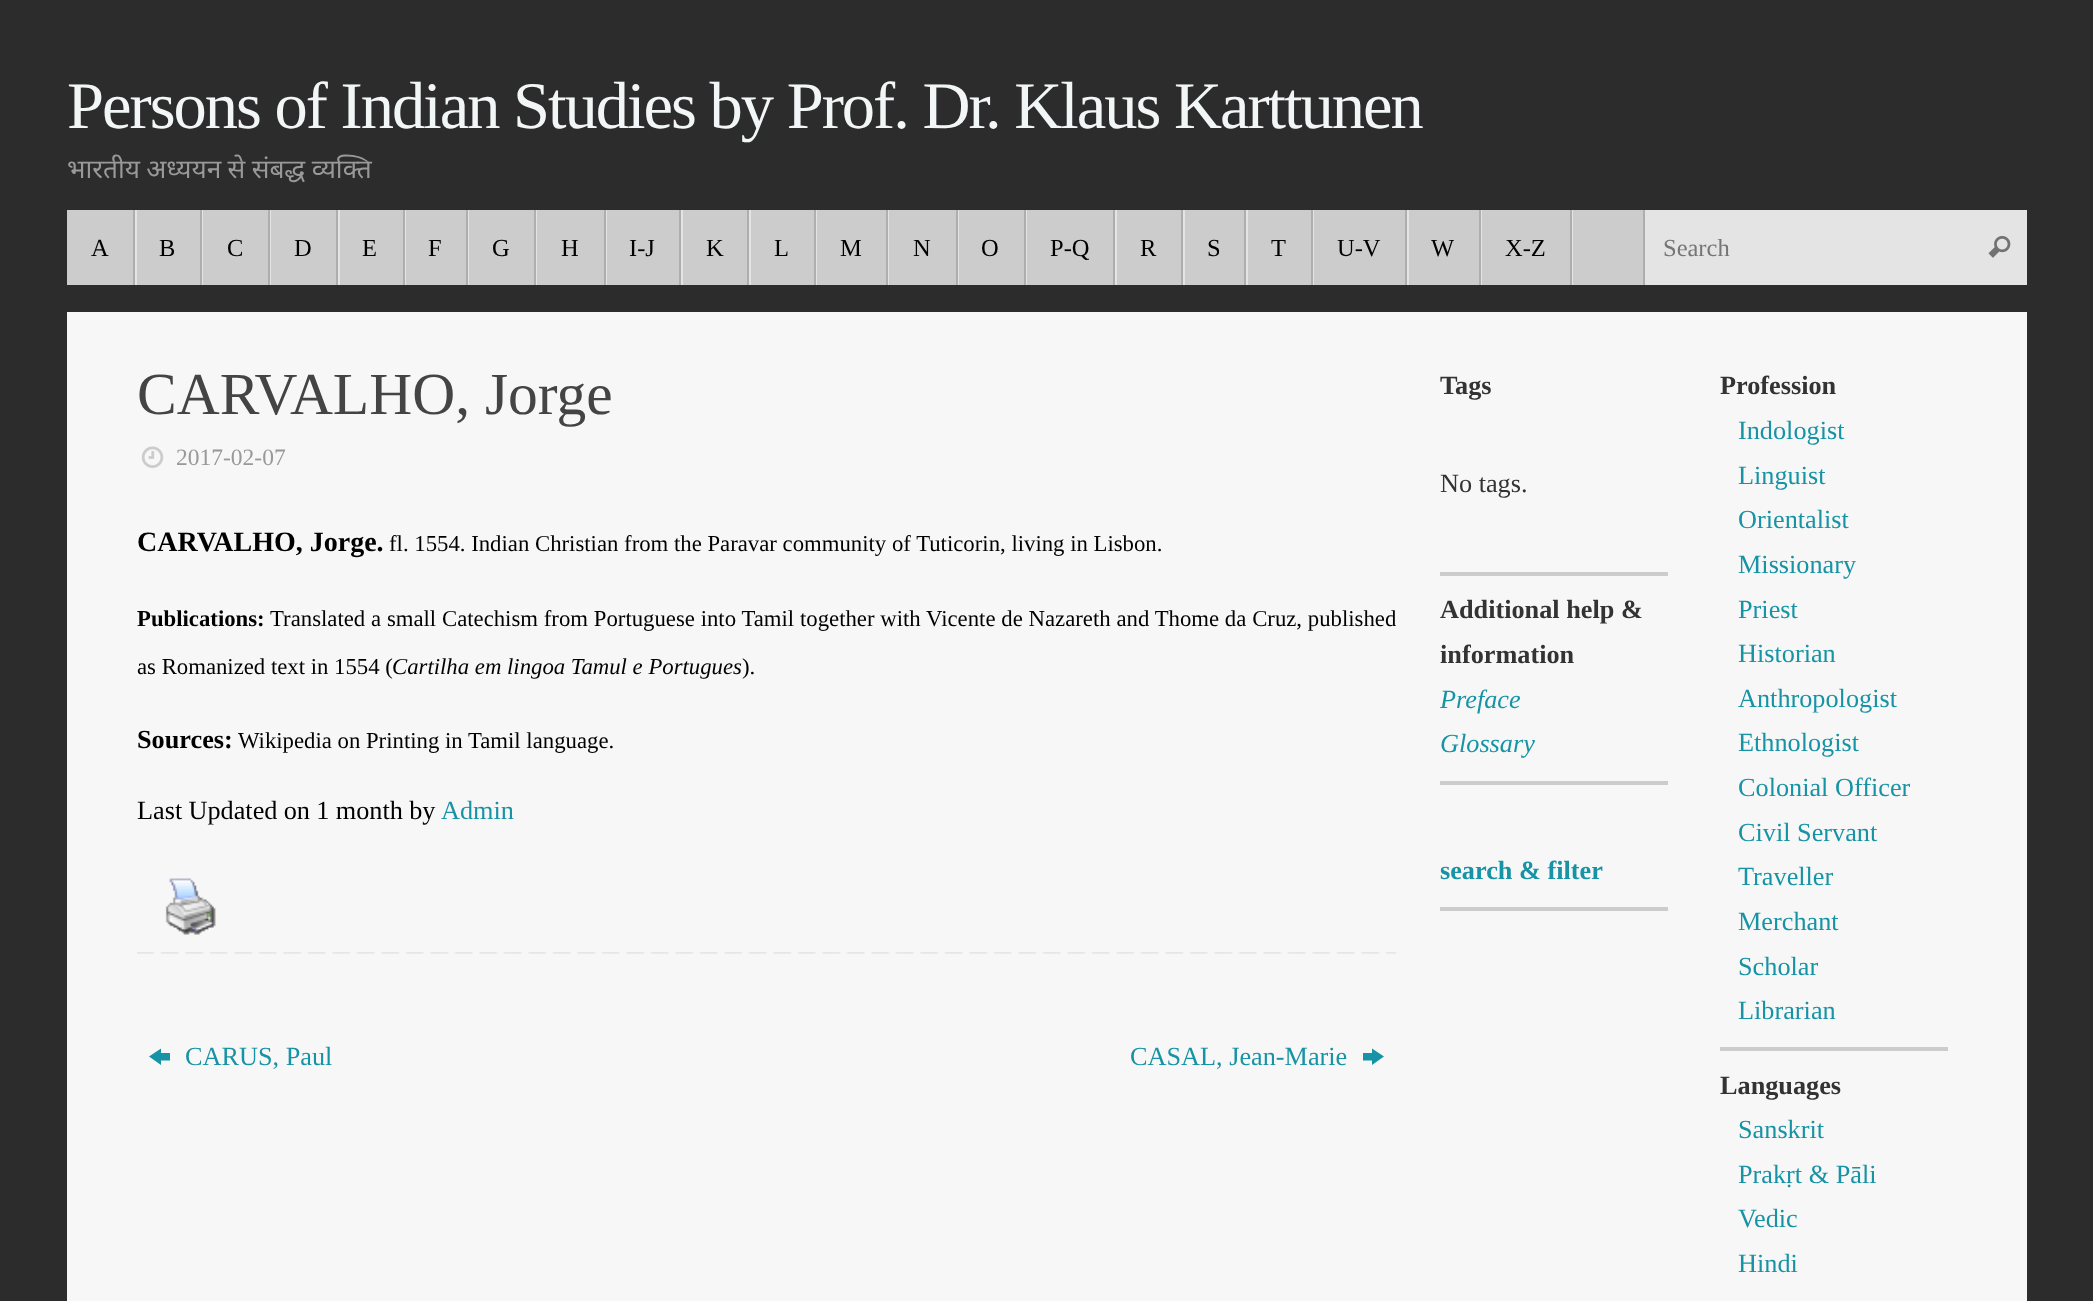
<svg xmlns="http://www.w3.org/2000/svg" xmlns:xlink="http://www.w3.org/1999/xlink" width="2093" height="1301" viewBox="0 0 2093 1301">
<style>
.cls-1{font:66.5px Liberation Serif;letter-spacing:-2px;fill:#f3f6f6}
.cls-2{font:26.25px Noto Sans;fill:#999999}
.cls-3{font:24.5px Liberation Serif;fill:#000000}
.cls-4{font:24.5px Liberation Serif;fill:#757575}
.cls-5{font:59.5px Liberation Serif;fill:#444444}
.cls-6{font:23.5px Liberation Serif;fill:#999999}
.cls-7{font:bold 28px Liberation Serif;fill:#000000}
.cls-8{font:22.75px Liberation Serif;fill:#000000}
.cls-9{font:bold 22.75px Liberation Serif;fill:#000000}
.cls-10{font:italic 22.75px Liberation Serif;fill:#000000}
.cls-11{font:bold 26.25px Liberation Serif;fill:#000000}
.cls-12{font:26.25px Liberation Serif;fill:#000000}
.cls-13{font:26.25px Liberation Serif;fill:#1693a5}
.cls-14{font:bold 26.25px Liberation Serif;fill:#333333}
.cls-15{font:26.25px Liberation Serif;fill:#333333}
.cls-16{font:italic 26.25px Liberation Serif;fill:#1693a5}
.cls-17{font:bold 26.25px Liberation Serif;fill:#1693a5}
</style>
<defs>
<clipPath id="clip1"><rect x="67" y="0" width="1960" height="210"/></clipPath>
</defs>
<rect width="100%" height="100%" fill="#2c2c2c"/>
<rect fill="#cccccc" x="67" y="210" width="1576" height="75"/>
<rect fill="#e4e4e4" x="135" y="210" width="2" height="75"/>
<rect fill="#aeaeae" x="133" y="210" width="2" height="75"/>
<rect fill="#e4e4e4" x="202" y="210" width="1" height="75"/>
<rect fill="#aeaeae" x="200" y="210" width="2" height="75"/>
<rect fill="#e4e4e4" x="270" y="210" width="1" height="75"/>
<rect fill="#aeaeae" x="268" y="210" width="2" height="75"/>
<rect fill="#e4e4e4" x="338" y="210" width="2" height="75"/>
<rect fill="#aeaeae" x="336" y="210" width="2" height="75"/>
<rect fill="#e4e4e4" x="405" y="210" width="1" height="75"/>
<rect fill="#aeaeae" x="403" y="210" width="2" height="75"/>
<rect fill="#e4e4e4" x="468" y="210" width="1" height="75"/>
<rect fill="#aeaeae" x="466" y="210" width="2" height="75"/>
<rect fill="#e4e4e4" x="536" y="210" width="1" height="75"/>
<rect fill="#aeaeae" x="534" y="210" width="2" height="75"/>
<rect fill="#e4e4e4" x="606" y="210" width="1" height="75"/>
<rect fill="#aeaeae" x="604" y="210" width="2" height="75"/>
<rect fill="#e4e4e4" x="681" y="210" width="2" height="75"/>
<rect fill="#aeaeae" x="679" y="210" width="2" height="75"/>
<rect fill="#e4e4e4" x="749" y="210" width="2" height="75"/>
<rect fill="#aeaeae" x="747" y="210" width="2" height="75"/>
<rect fill="#e4e4e4" x="816" y="210" width="1" height="75"/>
<rect fill="#aeaeae" x="814" y="210" width="2" height="75"/>
<rect fill="#e4e4e4" x="888" y="210" width="1" height="75"/>
<rect fill="#aeaeae" x="886" y="210" width="2" height="75"/>
<rect fill="#e4e4e4" x="958" y="210" width="1" height="75"/>
<rect fill="#aeaeae" x="956" y="210" width="2" height="75"/>
<rect fill="#e4e4e4" x="1026" y="210" width="1" height="75"/>
<rect fill="#aeaeae" x="1024" y="210" width="2" height="75"/>
<rect fill="#e4e4e4" x="1115" y="210" width="2" height="75"/>
<rect fill="#aeaeae" x="1113" y="210" width="2" height="75"/>
<rect fill="#e4e4e4" x="1183" y="210" width="2" height="75"/>
<rect fill="#aeaeae" x="1181" y="210" width="2" height="75"/>
<rect fill="#e4e4e4" x="1246" y="210" width="2" height="75"/>
<rect fill="#aeaeae" x="1244" y="210" width="2" height="75"/>
<rect fill="#e4e4e4" x="1313" y="210" width="1" height="75"/>
<rect fill="#aeaeae" x="1311" y="210" width="2" height="75"/>
<rect fill="#e4e4e4" x="1407" y="210" width="2" height="75"/>
<rect fill="#aeaeae" x="1405" y="210" width="2" height="75"/>
<rect fill="#e4e4e4" x="1481" y="210" width="1" height="75"/>
<rect fill="#aeaeae" x="1479" y="210" width="2" height="75"/>
<rect fill="#e4e4e4" x="1572" y="210" width="1" height="75"/>
<rect fill="#aeaeae" x="1570" y="210" width="2" height="75"/>
<rect fill="#e4e4e4" x="1645" y="210" width="382" height="75"/>
<rect fill="#aeaeae" x="1643" y="210" width="2" height="75"/>
<image xlink:href="image0.png" x="1988" y="236" width="23" height="22"/>
<rect fill="#f8f7f7" x="67" y="312" width="1960" height="989"/>
<image xlink:href="image1.png" x="141" y="446" width="23" height="22"/>
<image xlink:href="image2.png" x="165" y="878" width="51" height="57"/>
<image xlink:href="image3.png" x="137" y="952" width="1260" height="2"/>
<path fill="#1693a5" d="M149 1056.5L161 1048.5V1053H170V1060.5H161V1065Z"/>
<path fill="#1693a5" d="M1363 1060.5V1053H1372V1048.5L1384 1056.5L1372 1065V1060.5Z"/>
<rect fill="#cccccc" x="1440" y="572" width="228" height="4"/>
<rect fill="#cccccc" x="1440" y="781" width="228" height="4"/>
<rect fill="#cccccc" x="1440" y="907" width="228" height="4"/>
<rect fill="#cccccc" x="1720" y="1047" width="228" height="4"/>
<text class="cls-1" x="67" y="128">Persons of Indian Studies by Prof. Dr. Klaus Karttunen</text>
<g clip-path="url(#clip1)">
<text class="cls-2" x="67" y="178" word-spacing="-0.5">भारतीय अध्ययन से संबद्ध व्यक्ति</text>
</g>
<text class="cls-3" x="91" y="256">A</text>
<text class="cls-3" x="159" y="256">B</text>
<text class="cls-3" x="227" y="256">C</text>
<text class="cls-3" x="294" y="256">D</text>
<text class="cls-3" x="362" y="256">E</text>
<text class="cls-3" x="428" y="256">F</text>
<text class="cls-3" x="492" y="256">G</text>
<text class="cls-3" x="561" y="256">H</text>
<text class="cls-3" x="629" y="256">I-J</text>
<text class="cls-3" x="706" y="256">K</text>
<text class="cls-3" x="774" y="256">L</text>
<text class="cls-3" x="840" y="256">M</text>
<text class="cls-3" x="913" y="256">N</text>
<text class="cls-3" x="981" y="256">O</text>
<text class="cls-3" x="1050" y="256">P-Q</text>
<text class="cls-3" x="1140" y="256">R</text>
<text class="cls-3" x="1207" y="256">S</text>
<text class="cls-3" x="1271" y="256">T</text>
<text class="cls-3" x="1337" y="256">U-V</text>
<text class="cls-3" x="1431" y="256">W</text>
<text class="cls-3" x="1505" y="256">X-Z</text>
<text class="cls-4" x="1663" y="256">Search</text>
<text class="cls-5" x="137" y="414">CARVALHO, Jorge</text>
<text class="cls-6" x="176" y="465">2017-02-07</text>
<text class="cls-7" x="137" y="551">CARVALHO, Jorge.</text>
<text class="cls-8" x="389" y="551">fl. 1554. Indian Christian from the Paravar community of Tuticorin, living in Lisbon.</text>
<text class="cls-9" x="137" y="626">Publications:</text>
<text class="cls-8" x="270" y="626" word-spacing="0.1">Translated a small Catechism from Portuguese into Tamil together with Vicente de Nazareth and Thome da Cruz, published</text>
<text class="cls-8" x="137" y="674">as Romanized text in 1554 (</text>
<text class="cls-10" x="392" y="674">Cartilha em lingoa Tamul e Portugues</text>
<text class="cls-8" x="742" y="674">).</text>
<text class="cls-11" x="137" y="748">Sources:</text>
<text class="cls-8" x="238" y="748">Wikipedia on Printing in Tamil language.</text>
<text class="cls-12" x="137" y="819" word-spacing="-0.25">Last Updated on 1 month by</text>
<text class="cls-13" x="441" y="819">Admin</text>
<text class="cls-13" x="185" y="1065">CARUS, Paul</text>
<text class="cls-13" x="1130" y="1065">CASAL, Jean-Marie</text>
<text class="cls-14" x="1440" y="394">Tags</text>
<text class="cls-15" x="1440" y="492">No tags.</text>
<text class="cls-14"><tspan x="1440" y="618">Additional help &amp;</tspan><tspan x="1440" y="663">information</tspan></text>
<text class="cls-16"><tspan x="1440" y="708">Preface</tspan><tspan x="1440" y="752">Glossary</tspan></text>
<text class="cls-17" x="1440" y="879">search &amp; filter</text>
<text class="cls-14" x="1720" y="394">Profession</text>
<text class="cls-13"><tspan x="1738" y="439">Indologist</tspan><tspan x="1738" y="484">Linguist</tspan><tspan x="1738" y="528">Orientalist</tspan><tspan x="1738" y="573">Missionary</tspan><tspan x="1738" y="618">Priest</tspan><tspan x="1738" y="662">Historian</tspan><tspan x="1738" y="707">Anthropologist</tspan><tspan x="1738" y="751">Ethnologist</tspan><tspan x="1738" y="796">Colonial Officer</tspan><tspan x="1738" y="841">Civil Servant</tspan><tspan x="1738" y="885">Traveller</tspan><tspan x="1738" y="930">Merchant</tspan><tspan x="1738" y="975">Scholar</tspan><tspan x="1738" y="1019">Librarian</tspan></text>
<text class="cls-14" x="1720" y="1094">Languages</text>
<text class="cls-13"><tspan x="1738" y="1138">Sanskrit</tspan><tspan x="1738" y="1183">Prakṛt &amp; Pāli</tspan><tspan x="1738" y="1227">Vedic</tspan><tspan x="1738" y="1272">Hindi</tspan></text>
</svg>
